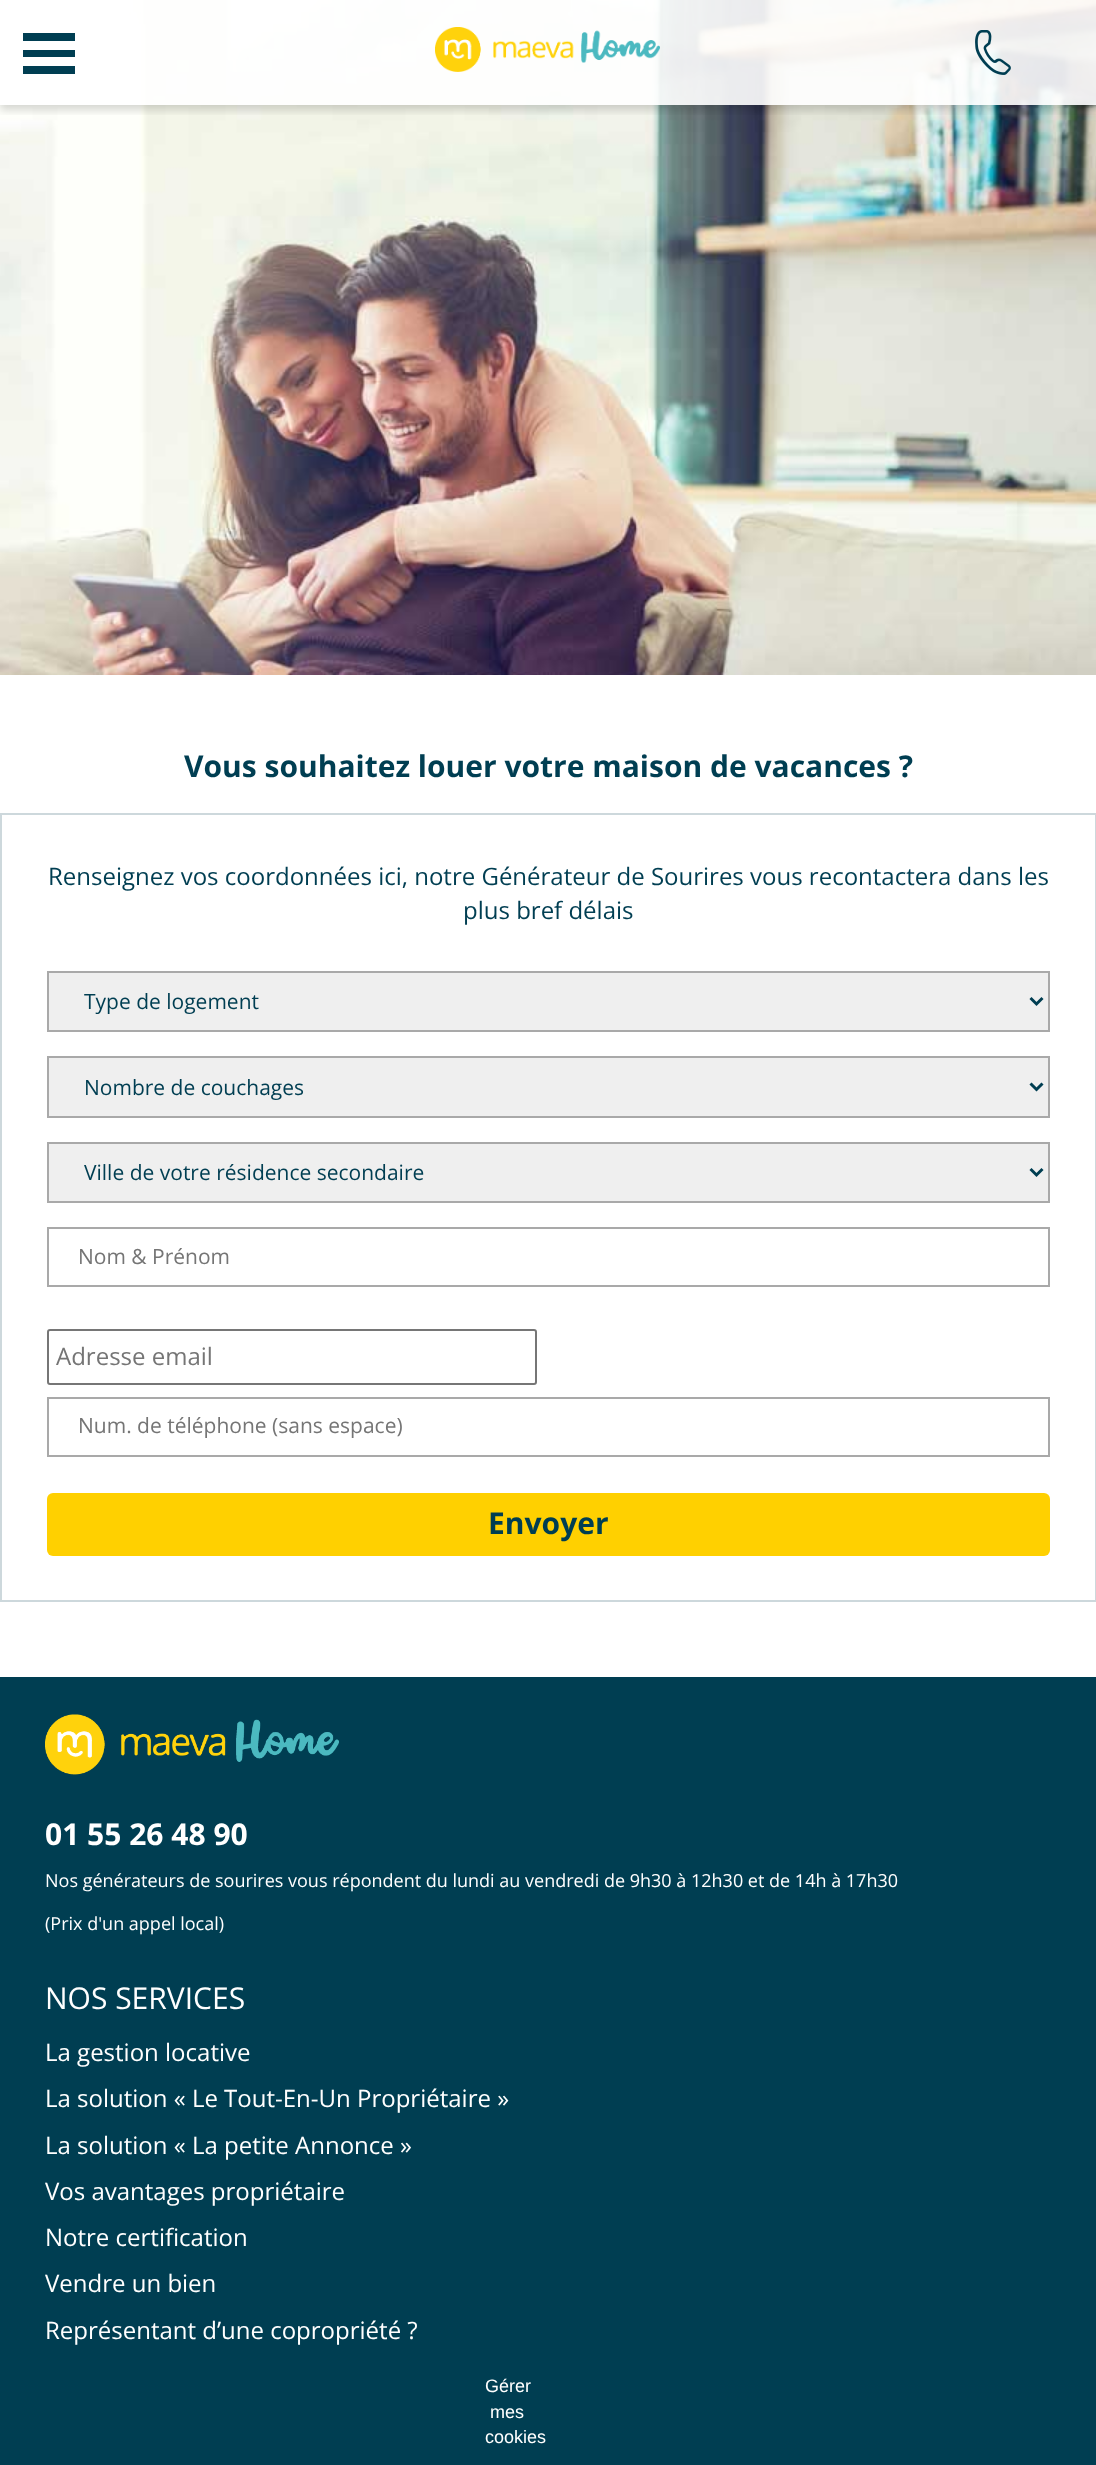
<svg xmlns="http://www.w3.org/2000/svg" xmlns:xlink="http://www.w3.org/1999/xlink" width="1096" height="2465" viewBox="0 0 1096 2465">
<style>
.cls-1{font:bold 30px Open Sans;fill:#003e52}
.cls-2{font:24px Open Sans;fill:#003e52}
.cls-3{font:21px Open Sans;fill:#003e52}
.cls-4{font:21px Open Sans;fill:#757575}
.cls-5{font:24px Open Sans;fill:#757575}
.cls-6{font:bold 30px Open Sans;fill:#ffffff}
.cls-7{font:18px Open Sans;fill:#ffffff}
.cls-8{font:30px Open Sans;fill:#ffffff}
.cls-9{font:24px Open Sans;fill:#ffffff}
.cls-10{font:18px Liberation Sans;fill:#ffffff}
</style>
<defs>
<clipPath id="clip1"><rect x="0" y="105" width="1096" height="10"/></clipPath>
</defs>
<rect width="100%" height="100%" fill="#ffffff"/>
<image xlink:href="image0.png" x="0" y="0" width="1096" height="675"/>
<g clip-path="url(#clip1)">
<rect fill="#000000" fill-opacity="0.16" filter="blur(4.5px)" x="0" y="5" width="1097" height="105"/>
</g>
<rect fill="#ffffff" fill-opacity="0.9" x="0" y="0" width="1096" height="105"/>
<rect fill="#003e52" x="23" y="33" width="52" height="8"/>
<rect fill="#003e52" x="23" y="50" width="52" height="7"/>
<rect fill="#003e52" x="23" y="66" width="52" height="8"/>
<image xlink:href="image1.png" x="435" y="27" width="225" height="45"/>
<image xlink:href="image2.png" x="975" y="30" width="36" height="45"/>
<rect fill="none" stroke="#cdd8dc" stroke-width="2" x="1" y="814" width="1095" height="787"/>
<rect fill="#efefef" stroke="#a9a9a9" stroke-width="2" x="48" y="972" width="1001" height="59"/>
<path fill="none" stroke="#003e52" stroke-width="3" d="M1030.5 998L1036.5 1004L1042.5 998"/>
<rect fill="#efefef" stroke="#a9a9a9" stroke-width="2" x="48" y="1057" width="1001" height="60"/>
<path fill="none" stroke="#003e52" stroke-width="3" d="M1030.5 1083.5L1036.5 1089.5L1042.5 1083.5"/>
<rect fill="#efefef" stroke="#a9a9a9" stroke-width="2" x="48" y="1143" width="1001" height="59"/>
<path fill="none" stroke="#003e52" stroke-width="3" d="M1030.5 1169L1036.5 1175L1042.5 1169"/>
<rect fill="none" stroke="#a9a9a9" stroke-width="2" x="48" y="1228" width="1001" height="58"/>
<rect fill="none" stroke="#767676" stroke-width="2" x="48" y="1330" width="488" height="54" rx="2"/>
<rect fill="none" stroke="#a9a9a9" stroke-width="2" x="48" y="1398" width="1001" height="58"/>
<rect fill="#ffd000" x="47" y="1493" width="1003" height="63" rx="6"/>
<rect fill="#003e52" x="0" y="1677" width="1096" height="788"/>
<image xlink:href="image3.png" x="45" y="1714" width="294" height="61"/>
<text class="cls-1" x="184" y="777">Vous souhaitez louer votre maison de vacances ?</text>
<text class="cls-2" x="48" y="885">Renseignez vos coordonnées ici, notre Générateur de Sourires vous recontactera dans les</text>
<text class="cls-2" x="463" y="919">plus bref délais</text>
<text class="cls-3" x="84" y="1009">Type de logement</text>
<text class="cls-3" x="84" y="1095">Nombre de couchages</text>
<text class="cls-3" x="84" y="1180">Ville de votre résidence secondaire</text>
<text class="cls-4" x="78" y="1264">Nom &amp; Prénom</text>
<text class="cls-5" x="56" y="1365">Adresse email</text>
<text class="cls-4" x="78" y="1433">Num. de téléphone (sans espace)</text>
<text class="cls-1" x="488" y="1534">Envoyer</text>
<text class="cls-6" x="45" y="1845">01 55 26 48 90</text>
<text class="cls-7" x="45" y="1887">Nos générateurs de sourires vous répondent du lundi au vendredi de 9h30 à 12h30 et de 14h à 17h30</text>
<text class="cls-7" x="45" y="1930">(Prix d'un appel local)</text>
<text class="cls-8" x="45" y="2009">NOS SERVICES</text>
<text class="cls-9"><tspan x="45" y="2061">La gestion locative</tspan><tspan x="45" y="2107">La solution « Le Tout-En-Un Propriétaire »</tspan><tspan x="45" y="2154">La solution « La petite Annonce »</tspan><tspan x="45" y="2200">Vos avantages propriétaire</tspan><tspan x="45" y="2246">Notre certification</tspan><tspan x="45" y="2292">Vendre un bien</tspan><tspan x="45" y="2339">Représentant d’une copropriété ?</tspan></text>
<text class="cls-10" x="485" y="2392">Gérer</text>
<text class="cls-10" x="490" y="2418">mes</text>
<text class="cls-10" x="485" y="2443">cookies</text>
</svg>
